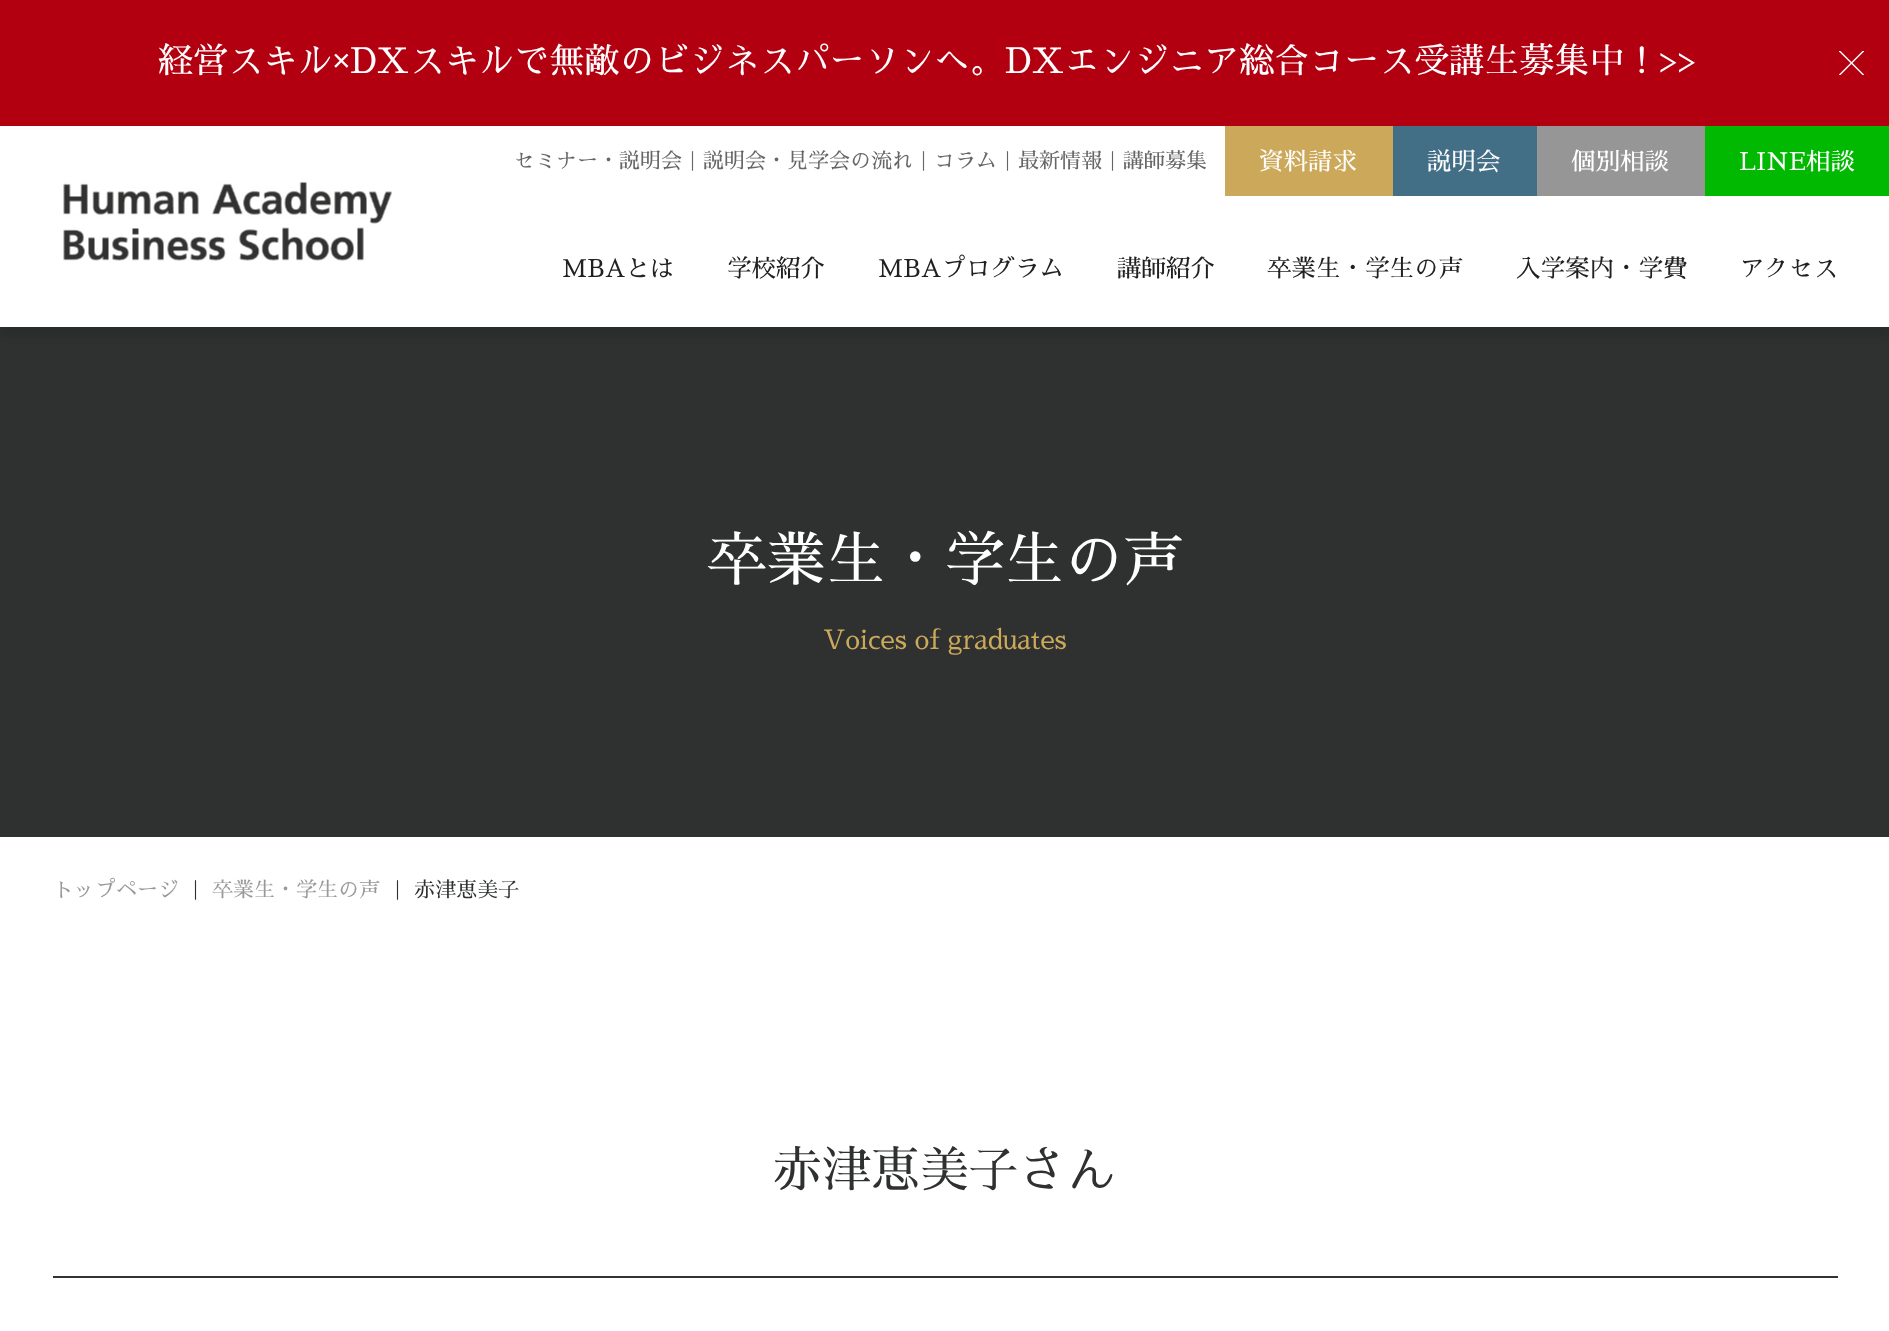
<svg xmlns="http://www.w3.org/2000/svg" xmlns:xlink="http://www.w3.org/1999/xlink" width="1889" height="1331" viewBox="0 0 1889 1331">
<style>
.cls-1{font:35px Sawarabi Mincho;fill:#ffffff}
.cls-2{font:21px Sawarabi Mincho;fill:#666666}
.cls-3{font:24.5px Sawarabi Mincho;fill:#ffffff}
.cls-4{font:24.5px Sawarabi Mincho;fill:#212121}
.cls-5{font:59.5px Sawarabi Mincho;fill:#ffffff}
.cls-6{font:26.25px Sawarabi Mincho;fill:#cca95a}
.cls-7{font:21px Sawarabi Mincho;fill:#999999}
.cls-8{font:21px Sawarabi Mincho;fill:#2f3131}
.cls-9{font:49px Sawarabi Mincho;fill:#2f3131}
</style>
<defs>
<clipPath id="clip1"><rect x="1839" y="51" width="25" height="24"/></clipPath>
</defs>
<rect width="100%" height="100%" fill="#ffffff"/>
<rect fill="#b30011" x="0" y="0" width="1889" height="126"/>
<g clip-path="url(#clip1)">
<path fill="#ffffff" d="M1869.5 44L1870.5 45L1833.5 82L1832.5 81Z"/>
<path fill="#ffffff" d="M1832.5 45L1833.5 44L1870.5 81L1869.5 82Z"/>
</g>
<rect fill="#2f3131" x="0" y="327" width="1889" height="510"/>
<rect fill="#000000" fill-opacity="0.1" filter="blur(4.5px)" x="0" y="135" width="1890" height="201"/>
<rect fill="#ffffff" x="0" y="129" width="1889" height="198"/>
<rect fill="#cca95a" x="1225" y="126" width="168" height="70"/>
<rect fill="#426e86" x="1393" y="126" width="144" height="70"/>
<rect fill="#969696" x="1537" y="126" width="168" height="70"/>
<rect fill="#00b900" x="1705" y="126" width="184" height="70"/>
<image xlink:href="image0.png" x="63" y="182" width="329" height="79"/>
<rect fill="#333333" x="53" y="1276" width="1785" height="2"/>
<text class="cls-1" x="158" y="73">経営スキル×DXスキルで無敵のビジネスパーソンへ。DXエンジニア総合コース受講生募集中！&gt;&gt;</text>
<text class="cls-2" x="514" y="168">セミナー・説明会｜説明会・見学会の流れ｜コラム｜最新情報｜講師募集</text>
<text class="cls-3" x="1259" y="170">資料請求</text>
<text class="cls-3" x="1427" y="170">説明会</text>
<text class="cls-3" x="1571" y="170">個別相談</text>
<text class="cls-3" x="1739" y="170">LINE相談</text>
<text class="cls-4" x="562" y="277">MBAとは</text>
<text class="cls-4" x="727" y="277">学校紹介</text>
<text class="cls-4" x="878" y="277">MBAプログラム</text>
<text class="cls-4" x="1117" y="277">講師紹介</text>
<text class="cls-4" x="1267" y="277">卒業生・学生の声</text>
<text class="cls-4" x="1516" y="277">入学案内・学費</text>
<text class="cls-4" x="1740" y="277">アクセス</text>
<text class="cls-5" x="707" y="581">卒業生・学生の声</text>
<text class="cls-6" x="823" y="649">Voices of graduates</text>
<text class="cls-7" x="53" y="897">トップページ</text>
<text class="cls-8" x="185" y="897">｜</text>
<text class="cls-7" x="212" y="897">卒業生・学生の声</text>
<text class="cls-8" x="387" y="897">｜ 赤津恵美子</text>
<text class="cls-9" x="773" y="1187">赤津恵美子さん</text>
</svg>
